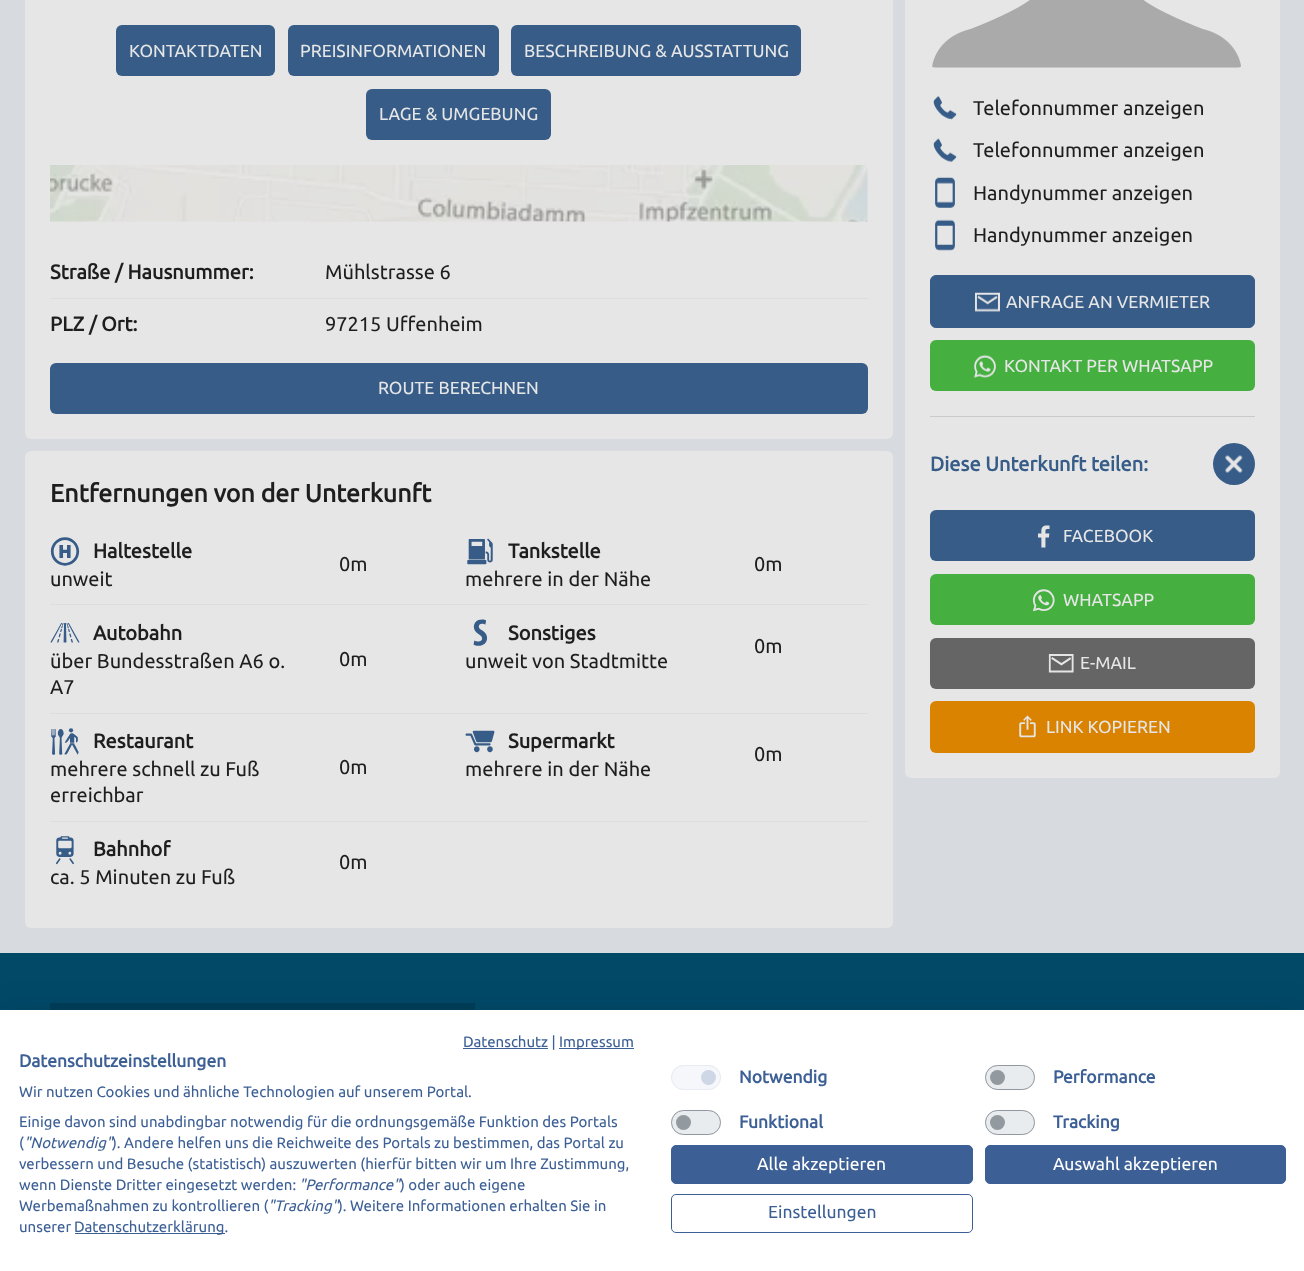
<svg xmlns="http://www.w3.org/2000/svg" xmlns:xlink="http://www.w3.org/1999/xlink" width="1304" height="1271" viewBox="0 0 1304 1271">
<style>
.cls-1{font:17.5px Ubuntu;fill:#e6e6e6}
.cls-2{font:bold 20px Ubuntu;fill:#1e1e1e}
.cls-3{font:20px Ubuntu;fill:#1e1e1e}
.cls-4{font:bold 25px Ubuntu;fill:#1e1e1e}
.cls-5{font:bold 20px Ubuntu;fill:#365c87}
.cls-6{font:15px Ubuntu;fill:#3c5f95}
.cls-7{font:bold 17.5px Ubuntu;fill:#3c5f95}
.cls-8{font:italic 15px Ubuntu;fill:#3c5f95}
.cls-9{font:17.5px Ubuntu;fill:#ffffff}
.cls-10{font:17.5px Ubuntu;fill:#3c5f95}
</style>
<rect width="100%" height="100%" fill="#d7dade"/>
<rect fill="#e6e6e6" x="25" y="-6" width="868" height="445" rx="6"/>
<rect fill="#365c87" x="116" y="25" width="159" height="51" rx="6"/>
<rect fill="#365c87" x="288" y="25" width="211" height="51" rx="6"/>
<rect fill="#365c87" x="511" y="25" width="290" height="51" rx="6"/>
<rect fill="#365c87" x="366" y="89" width="185" height="51" rx="6"/>
<image xlink:href="image0.png" x="50" y="165" width="818" height="57"/>
<rect fill="#dddddd" x="50" y="298" width="818" height="1"/>
<rect fill="#365c87" x="50" y="363" width="818" height="51" rx="6"/>
<rect fill="#e6e6e6" x="25" y="451" width="868" height="477" rx="6"/>
<rect fill="#dddddd" x="50" y="604" width="818" height="1"/>
<image xlink:href="image1.png" x="50" y="537" width="30" height="29"/>
<image xlink:href="image2.png" x="467" y="538" width="26" height="27"/>
<rect fill="#dddddd" x="50" y="713" width="818" height="1"/>
<image xlink:href="image3.png" x="50" y="623" width="30" height="20"/>
<image xlink:href="image4.png" x="473" y="619" width="14" height="27"/>
<rect fill="#dddddd" x="50" y="821" width="818" height="1"/>
<image xlink:href="image5.png" x="51" y="728" width="28" height="27"/>
<image xlink:href="image6.png" x="465" y="730" width="30" height="23"/>
<image xlink:href="image7.png" x="56" y="836" width="18" height="29"/>
<rect fill="#e6e6e6" x="905" y="-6" width="375" height="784" rx="6"/>
<image xlink:href="image8.png" x="932" y="0" width="309" height="68"/>
<image xlink:href="image9.png" x="933" y="95" width="24" height="25"/>
<image xlink:href="image10.png" x="933" y="138" width="24" height="24"/>
<image xlink:href="image11.png" x="935" y="177" width="20" height="31"/>
<image xlink:href="image12.png" x="935" y="219" width="20" height="32"/>
<rect fill="#365c87" stroke="#365c87" x="930.5" y="275.5" width="324" height="52" rx="5.5"/>
<image xlink:href="image13.png" x="975" y="292" width="25" height="20"/>
<rect fill="#45af40" x="930" y="340" width="325" height="51" rx="6"/>
<image xlink:href="image14.png" x="974" y="354" width="22" height="24"/>
<rect fill="#cacaca" x="930" y="416" width="325" height="1"/>
<circle fill="#365c87" cx="1234" cy="464" r="21"/>
<image xlink:href="image15.png" x="1225" y="455" width="18" height="18"/>
<rect fill="#365c87" x="930" y="510" width="325" height="51" rx="6"/>
<image xlink:href="image16.png" x="1038" y="525" width="12" height="23"/>
<rect fill="#45af40" x="930" y="574" width="325" height="51" rx="6"/>
<image xlink:href="image17.png" x="1033" y="589" width="22" height="23"/>
<rect fill="#656565" x="930" y="638" width="325" height="51" rx="6"/>
<image xlink:href="image18.png" x="1048" y="654" width="26" height="19"/>
<rect fill="#da8300" x="930" y="701" width="325" height="52" rx="6"/>
<image xlink:href="image19.png" x="1019" y="715" width="17" height="23"/>
<rect fill="#024968" x="0" y="953" width="1304" height="57"/>
<rect fill="#003e59" x="50" y="1003" width="425" height="7"/>
<rect fill="#000000" fill-opacity="0.1" filter="blur(15px)" x="0" y="1010" width="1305" height="261"/>
<rect fill="#ffffff" x="0" y="1010" width="1304" height="261"/>
<rect fill="#3c5f95" x="463" y="1048" width="85" height="1"/>
<rect fill="#3c5f95" x="559" y="1048" width="75" height="1"/>
<rect fill="#3c5f95" x="75" y="1233" width="150" height="1"/>
<rect fill="#f5f7fa" x="671" y="1065" width="50" height="25" rx="12.5"/>
<circle fill="#ced7e5" cx="708.5" cy="1077.5" r="7.5"/>
<rect fill="none" stroke="#e7ebf2" x="671.5" y="1065.5" width="49" height="24" rx="12"/>
<rect fill="#e9ecef" x="985" y="1065" width="50" height="25" rx="12.5"/>
<circle fill="#92999f" cx="997.5" cy="1077.5" r="7.5"/>
<rect fill="none" stroke="#6c757d" stroke-opacity="0.7" x="985.5" y="1065.5" width="49" height="24" rx="12"/>
<rect fill="#e9ecef" x="671" y="1110" width="50" height="25" rx="12.5"/>
<circle fill="#92999f" cx="683.5" cy="1122.5" r="7.5"/>
<rect fill="none" stroke="#6c757d" stroke-opacity="0.7" x="671.5" y="1110.5" width="49" height="24" rx="12"/>
<rect fill="#e9ecef" x="985" y="1110" width="50" height="25" rx="12.5"/>
<circle fill="#92999f" cx="997.5" cy="1122.5" r="7.5"/>
<rect fill="none" stroke="#6c757d" stroke-opacity="0.7" x="985.5" y="1110.5" width="49" height="24" rx="12"/>
<rect fill="#3c5f95" stroke="#3c5f95" x="671.5" y="1145.5" width="301" height="38" rx="4.5"/>
<rect fill="#3c5f95" stroke="#3c5f95" x="985.5" y="1145.5" width="300" height="38" rx="4.5"/>
<rect fill="none" stroke="#3c5f95" x="671.5" y="1194.5" width="301" height="38" rx="4.5"/>
<text class="cls-1" x="129" y="57">KONTAKTDATEN</text>
<text class="cls-1" x="300" y="57">PREISINFORMATIONEN</text>
<text class="cls-1" x="524" y="57">BESCHREIBUNG &amp; AUSSTATTUNG</text>
<text class="cls-1" x="379" y="120">LAGE &amp; UMGEBUNG</text>
<text class="cls-2" x="50" y="279">Straße / Hausnummer:</text>
<text class="cls-3" x="325" y="279">Mühlstrasse 6</text>
<text class="cls-2" x="50" y="331">PLZ / Ort:</text>
<text class="cls-3" x="325" y="331">97215 Uffenheim</text>
<text class="cls-1" x="378" y="394">ROUTE BERECHNEN</text>
<text class="cls-4" x="50" y="502">Entfernungen von der Unterkunft</text>
<text class="cls-2" x="93" y="558">Haltestelle</text>
<text class="cls-3" x="50" y="586">unweit</text>
<text class="cls-3" x="339" y="571">0m</text>
<text class="cls-2" x="508" y="558">Tankstelle</text>
<text class="cls-3" x="465" y="586">mehrere in der Nähe</text>
<text class="cls-3" x="754" y="571">0m</text>
<text class="cls-2" x="93" y="640">Autobahn</text>
<text class="cls-3"><tspan x="50" y="668">über Bundesstraßen A6 o.</tspan><tspan x="50" y="694">A7</tspan></text>
<text class="cls-3" x="339" y="666">0m</text>
<text class="cls-2" x="508" y="640">Sonstiges</text>
<text class="cls-3" x="465" y="668">unweit von Stadtmitte</text>
<text class="cls-3" x="754" y="653">0m</text>
<text class="cls-2" x="93" y="748">Restaurant</text>
<text class="cls-3"><tspan x="50" y="776">mehrere schnell zu Fuß</tspan><tspan x="50" y="802">erreichbar</tspan></text>
<text class="cls-3" x="339" y="774">0m</text>
<text class="cls-2" x="508" y="748">Supermarkt</text>
<text class="cls-3" x="465" y="776">mehrere in der Nähe</text>
<text class="cls-3" x="754" y="761">0m</text>
<text class="cls-2" x="93" y="856">Bahnhof</text>
<text class="cls-3" x="50" y="884">ca. 5 Minuten zu Fuß</text>
<text class="cls-3" x="339" y="869">0m</text>
<text class="cls-3" x="973" y="115">Telefonnummer anzeigen</text>
<text class="cls-3" x="973" y="157">Telefonnummer anzeigen</text>
<text class="cls-3" x="973" y="200">Handynummer anzeigen</text>
<text class="cls-3" x="973" y="242">Handynummer anzeigen</text>
<text class="cls-1" x="1006" y="308">ANFRAGE AN VERMIETER</text>
<text class="cls-1" x="1004" y="372">KONTAKT PER WHATSAPP</text>
<text class="cls-5" x="930" y="471">Diese Unterkunft teilen:</text>
<text class="cls-1" x="1063" y="542">FACEBOOK</text>
<text class="cls-1" x="1063" y="606">WHATSAPP</text>
<text class="cls-1" x="1080" y="669">E-MAIL</text>
<text class="cls-1" x="1046" y="733">LINK KOPIEREN</text>
<text class="cls-6" x="463" y="1047">Datenschutz |</text>
<text class="cls-6" x="559" y="1047">Impressum</text>
<text class="cls-7" x="19" y="1067">Datenschutzeinstellungen</text>
<text class="cls-6" x="19" y="1097">Wir nutzen Cookies und ähnliche Technologien auf unserem Portal.</text>
<text class="cls-6"><tspan x="19" y="1127">Einige davon sind unabdingbar notwendig für die ordnungsgemäße Funktion des Portals</tspan><tspan x="19" y="1148">(</tspan></text>
<text class="cls-8" x="24" y="1148">"Notwendig"</text>
<text class="cls-6" x="112" y="1148">). Andere helfen uns die Reichweite des Portals zu bestimmen, das Portal zu</text>
<text class="cls-6"><tspan x="19" y="1169">verbessern und Besuche (statistisch) auszuwerten (hierfür bitten wir um Ihre Zustimmung,</tspan><tspan x="19" y="1190">wenn Dienste Dritter eingesetzt werden:</tspan></text>
<text class="cls-8" x="299" y="1190">"Performance"</text>
<text class="cls-6" x="400" y="1190">) oder auch eigene</text>
<text class="cls-6" x="19" y="1211">Werbemaßnahmen zu kontrollieren (</text>
<text class="cls-8" x="268" y="1211">"Tracking"</text>
<text class="cls-6" x="338" y="1211">). Weitere Informationen erhalten Sie in</text>
<text class="cls-6" x="19" y="1232">unserer</text>
<text class="cls-6" x="74" y="1232">Datenschutzerklärung.</text>
<text class="cls-7" x="739" y="1083">Notwendig</text>
<text class="cls-7" x="1053" y="1083">Performance</text>
<text class="cls-7" x="739" y="1128">Funktional</text>
<text class="cls-7" x="1053" y="1128">Tracking</text>
<text class="cls-9" x="757" y="1170">Alle akzeptieren</text>
<text class="cls-9" x="1053" y="1170">Auswahl akzeptieren</text>
<text class="cls-10" x="768" y="1218">Einstellungen</text>
</svg>
